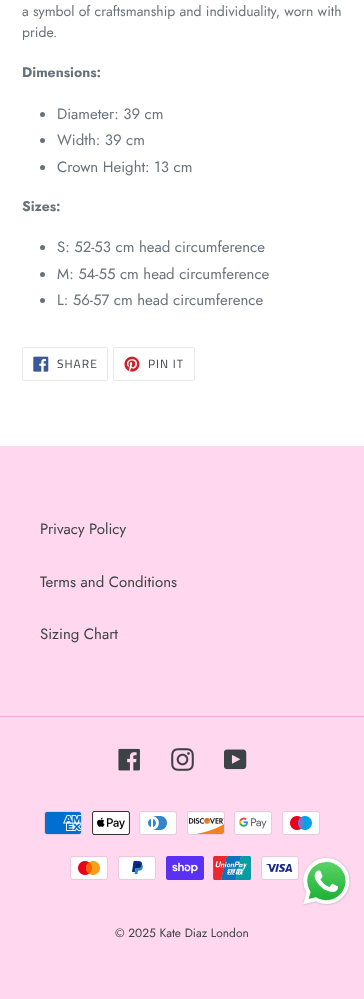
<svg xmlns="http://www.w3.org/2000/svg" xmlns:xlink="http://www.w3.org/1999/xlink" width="364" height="999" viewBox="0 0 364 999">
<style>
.cls-1{font:14px Jost;fill:#69727b}
.cls-2{font:bold 14px Jost;fill:#69727b}
.cls-3{font:15px Jost;fill:#69727b}
.cls-4{font:12px Titillium Web;letter-spacing:1px;fill:#3d4246}
.cls-5{font:15px Jost;fill:#3d4246}
.cls-6{font:12px Jost;fill:#3d4246}
</style>
<rect width="100%" height="100%" fill="#ffffff"/>
<circle fill="#69727b" cx="42.5" cy="114.5" r="2.5"/>
<circle fill="#69727b" cx="42.5" cy="140.5" r="2.5"/>
<circle fill="#69727b" cx="42.5" cy="167.5" r="2.5"/>
<circle fill="#69727b" cx="42.5" cy="247.5" r="2.5"/>
<circle fill="#69727b" cx="42.5" cy="274.5" r="2.5"/>
<circle fill="#69727b" cx="42.5" cy="300.5" r="2.5"/>
<rect fill="none" stroke="#e8e9eb" x="22.5" y="347.5" width="85" height="33" rx="1.5"/>
<image xlink:href="image0.png" x="33" y="356" width="16" height="16"/>
<rect fill="none" stroke="#e8e9eb" x="113.5" y="347.5" width="81" height="33" rx="1.5"/>
<image xlink:href="image1.png" x="124" y="356" width="16" height="16"/>
<rect fill="#ffd7ee" x="0" y="446" width="364" height="553"/>
<rect fill="#ffa4d8" x="0" y="716" width="364" height="1"/>
<image xlink:href="image2.png" x="118" y="748" width="22" height="23"/>
<image xlink:href="image3.png" x="171" y="748" width="23" height="23"/>
<image xlink:href="image4.png" x="224" y="749" width="23" height="21"/>
<image xlink:href="image5.png" x="44" y="811" width="38" height="24"/>
<image xlink:href="image6.png" x="92" y="811" width="38" height="24"/>
<image xlink:href="image7.png" x="139" y="811" width="38" height="24"/>
<image xlink:href="image8.png" x="187" y="811" width="38" height="24"/>
<image xlink:href="image9.png" x="234" y="811" width="38" height="24"/>
<image xlink:href="image10.png" x="282" y="811" width="38" height="24"/>
<image xlink:href="image11.png" x="70" y="856" width="38" height="24"/>
<image xlink:href="image12.png" x="118" y="856" width="38" height="24"/>
<image xlink:href="image13.png" x="166" y="856" width="38" height="24"/>
<image xlink:href="image14.png" x="213" y="856" width="38" height="24"/>
<image xlink:href="image15.png" x="261" y="856" width="38" height="24"/>
<image xlink:href="image16.png" x="302" y="856" width="49" height="50"/>
<text class="cls-1"><tspan x="22" y="16">a symbol of craftsmanship and individuality, worn with</tspan><tspan x="22" y="37">pride.</tspan></text>
<text class="cls-2" x="22" y="77">Dimensions:</text>
<text class="cls-3"><tspan x="57" y="119">Diameter: 39 cm</tspan><tspan x="57" y="145">Width: 39 cm</tspan><tspan x="57" y="172">Crown Height: 13 cm</tspan></text>
<text class="cls-2" x="22" y="211">Sizes:</text>
<text class="cls-3"><tspan x="57" y="252">S: 52-53 cm head circumference</tspan><tspan x="57" y="279">M: 54-55 cm head circumference</tspan><tspan x="57" y="305">L: 56-57 cm head circumference</tspan></text>
<text class="cls-4" x="57" y="368">SHARE</text>
<text class="cls-4" x="148" y="368">PIN IT</text>
<text class="cls-5" x="40" y="534">Privacy Policy</text>
<text class="cls-5" x="40" y="587">Terms and Conditions</text>
<text class="cls-5" x="40" y="639">Sizing Chart</text>
<text class="cls-6" x="115" y="937">© 2025 Kate Diaz London</text>
</svg>
